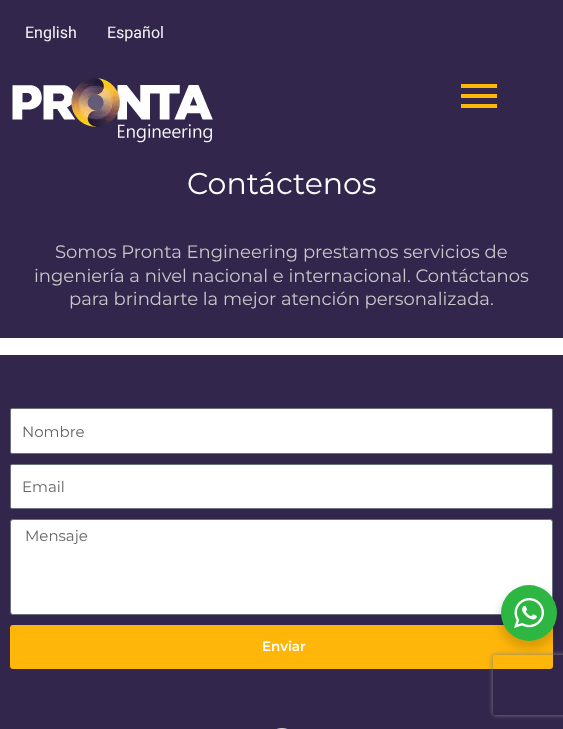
<svg xmlns="http://www.w3.org/2000/svg" xmlns:xlink="http://www.w3.org/1999/xlink" width="563" height="729" viewBox="0 0 563 729">
<style>
.cls-1{font:16px Roboto;fill:#f5f5f5}
.cls-2{font:30px Montserrat;fill:#ffffff}
.cls-3{font:18px Montserrat;fill:#c8c8c8}
.cls-4{font:15px Montserrat;fill:#666666}
.cls-5{font:600 13.5px Montserrat;fill:#ffffff}
</style>
<defs>
<clipPath id="clip1"><path d="M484 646H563V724H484ZM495 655H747C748 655 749 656 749 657V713C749 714 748 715 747 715H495C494 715 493 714 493 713V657C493 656 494 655 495 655Z" clip-rule="evenodd"/></clipPath>
</defs>
<rect width="100%" height="100%" fill="#ffffff"/>
<rect fill="#32264c" x="0" y="0" width="563" height="153"/>
<image xlink:href="image0.png" x="12" y="78" width="201" height="65"/>
<rect fill="#ffb60a" x="461" y="84" width="36" height="4"/>
<rect fill="#ffb60a" x="461" y="94" width="36" height="4"/>
<rect fill="#ffb60a" x="461" y="104" width="36" height="4"/>
<rect fill="#32264c" x="0" y="153" width="563" height="185"/>
<rect fill="#32264c" x="0" y="355" width="563" height="374"/>
<rect fill="#ffffff" stroke="#69727d" x="10.5" y="408.5" width="542" height="45" rx="1.5"/>
<rect fill="#ffffff" stroke="#69727d" x="10.5" y="464.5" width="542" height="44" rx="1.5"/>
<rect fill="#ffffff" stroke="#69727d" x="10.5" y="519.5" width="542" height="95" rx="2.5"/>
<rect fill="#ffb60a" x="10" y="625" width="543" height="44" rx="3"/>
<image xlink:href="image1.png" x="276" y="728" width="12" height="1"/>
<rect fill="#000000" fill-opacity="0.14" filter="blur(4px)" x="499" y="589" width="60" height="60" rx="30"/>
<circle fill="#2db742" cx="529" cy="613" r="28"/>
<image xlink:href="image2.png" x="514" y="598" width="30" height="30"/>
<g clip-path="url(#clip1)">
<rect fill="#808080" filter="blur(2.5px)" x="493" y="655" width="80" height="60" rx="2"/>
</g>
<text class="cls-1" x="25" y="38">English</text>
<text class="cls-1" x="107" y="38">Español</text>
<text class="cls-2" x="187" y="194">Contáctenos</text>
<text class="cls-3" x="55" y="258">Somos Pronta Engineering prestamos servicios de</text>
<text class="cls-3" x="34" y="282">ingeniería a nivel nacional e internacional. Contáctanos</text>
<text class="cls-3" x="69" y="305">para brindarte la mejor atención personalizada.</text>
<text class="cls-4" x="22" y="437">Nombre</text>
<text class="cls-4" x="22" y="492">Email</text>
<text class="cls-4" x="25" y="541">Mensaje</text>
<text class="cls-5" x="262" y="651">Enviar</text>
</svg>
